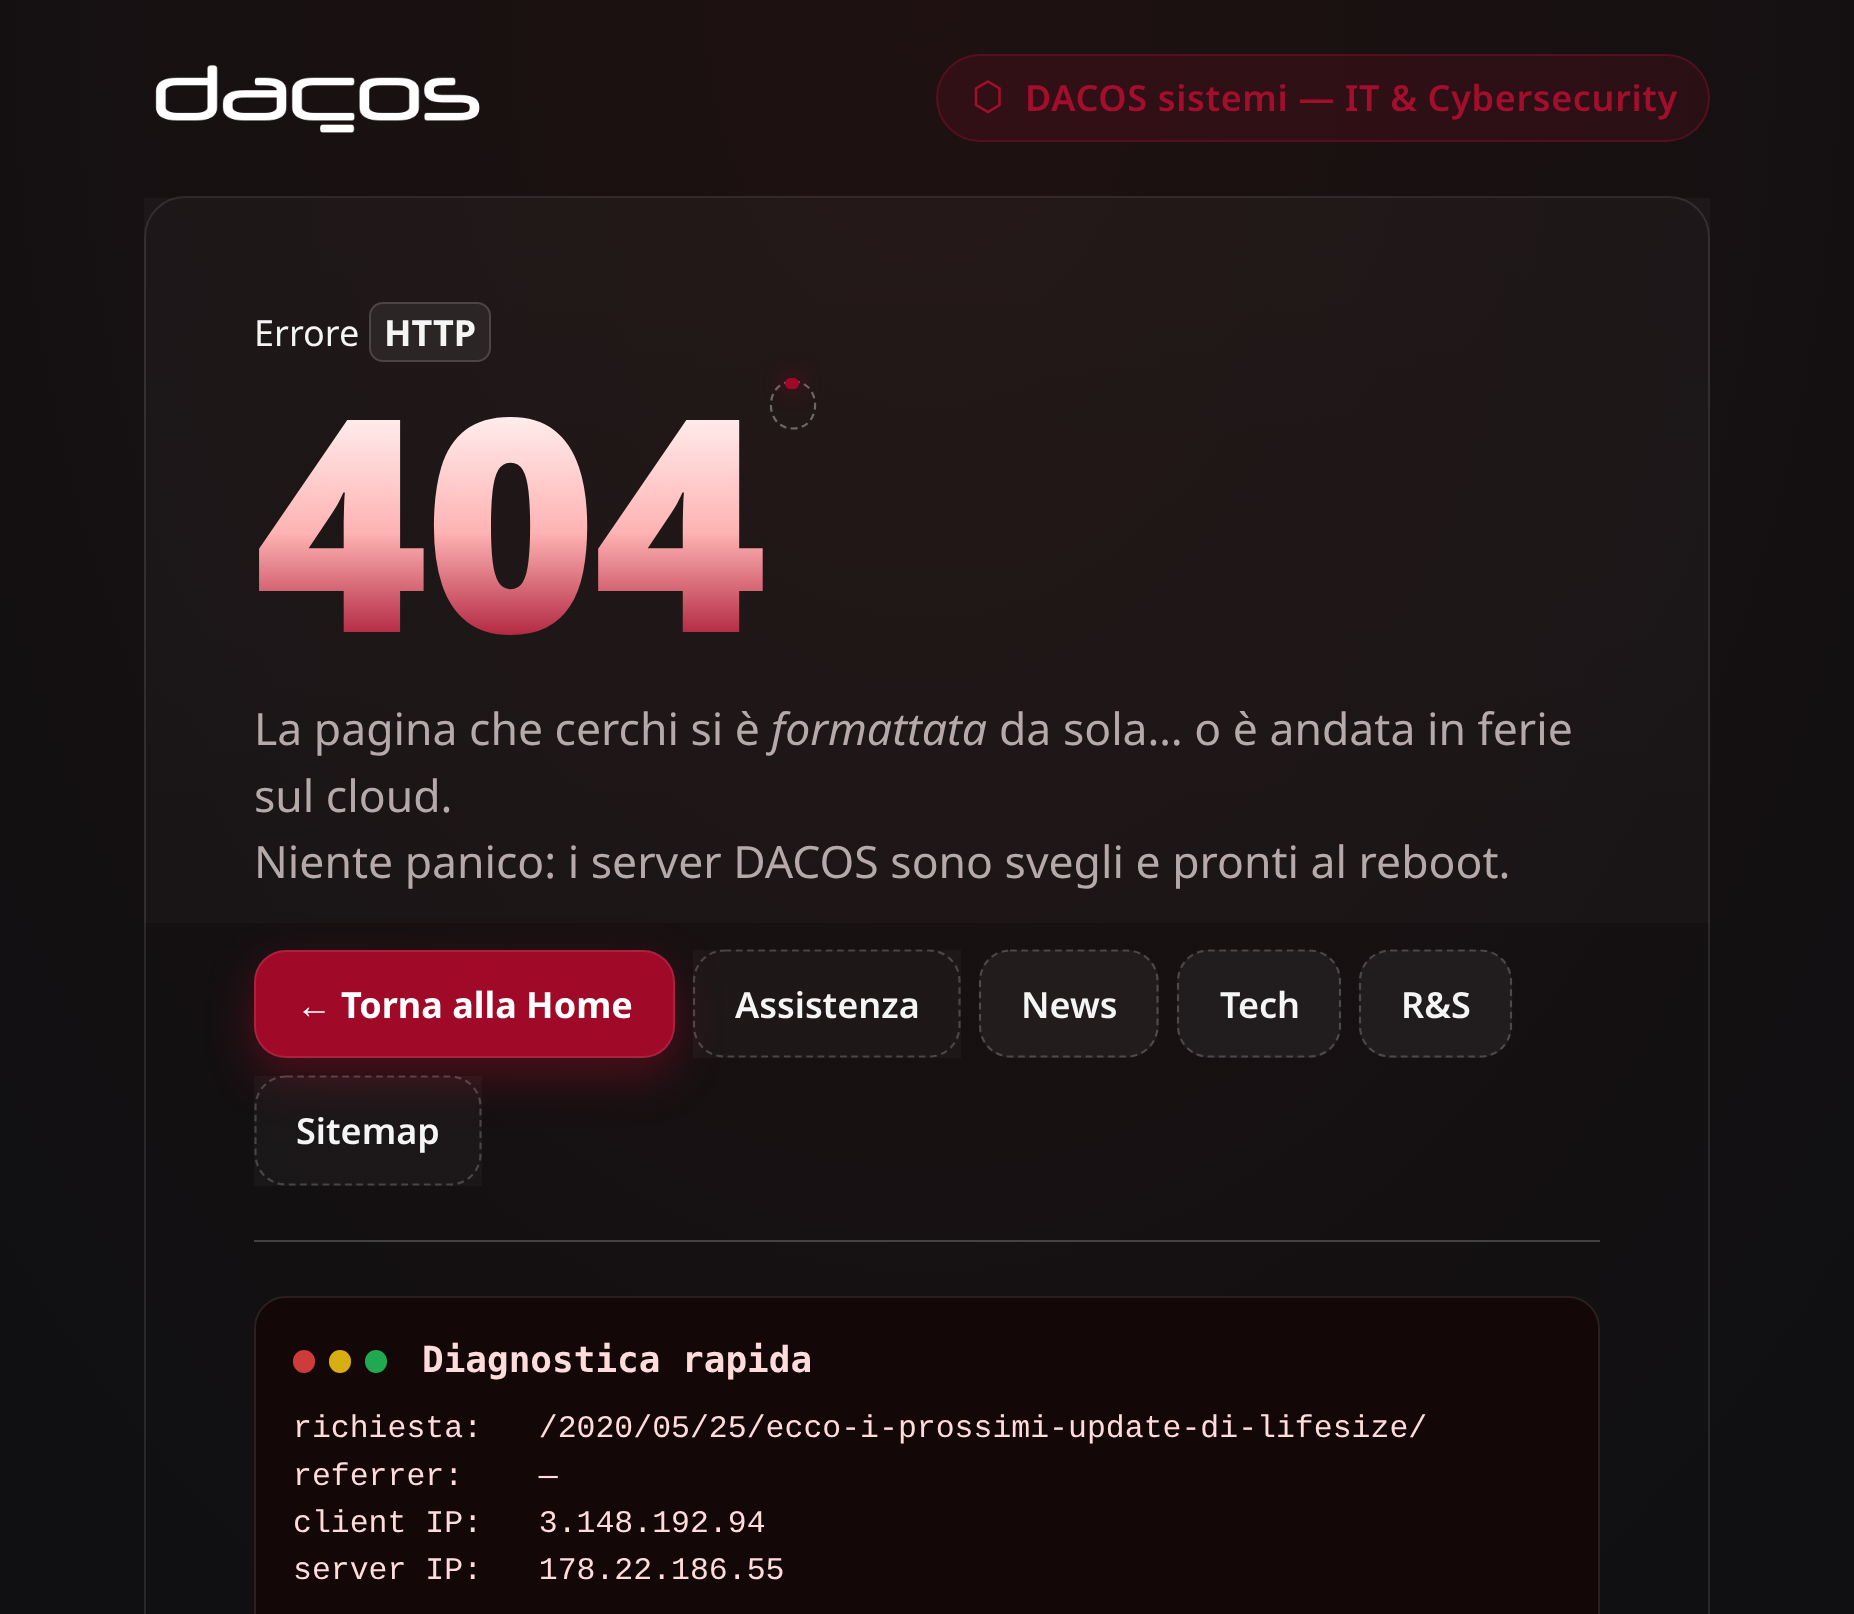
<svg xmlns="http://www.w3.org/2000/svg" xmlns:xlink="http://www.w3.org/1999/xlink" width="1854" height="1614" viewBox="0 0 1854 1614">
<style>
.cls-1{font:600 36px Noto Sans;letter-spacing:0.65px;fill:#a30e2c}
.cls-2{font:36px Noto Sans;fill:#f5f5f5}
.cls-3{font:bold 36px Noto Sans;fill:#f5f5f5}
.cls-4{font:900 297px Noto Sans;letter-spacing:-4.5px;fill:url(#g1)}
.cls-5{font:44.5px Noto Sans;fill:#b5a9a9}
.cls-6{font:italic 44.5px Noto Sans;fill:#b5a9a9}
.cls-7{font:bold 36px Liberation Sans;fill:#ffffff}
.cls-8{font:bold 36px Noto Sans;fill:#ffffff}
.cls-9{font:600 36px Noto Sans;fill:#f5f5f5}
.cls-10{font:bold 36px DejaVu Sans Mono;fill:#ffdcdc}
.cls-11{font:31.5px Liberation Mono;fill:#ffdcdc}
</style>
<defs>
<linearGradient id="g1" gradientUnits="userSpaceOnUse" x1="508" y1="378" x2="508" y2="659"><stop offset="0" stop-color="#ffffff"/><stop offset="0.55" stop-color="#ffb3b3"/><stop offset="1" stop-color="#a10928"/></linearGradient>
<radialGradient id="g2" gradientUnits="userSpaceOnUse" cx="0" cy="0" r="1" gradientTransform="matrix(1298 0 0 1939 927 0)"><stop offset="0" stop-color="#1f1111"/><stop offset="1" stop-color="#101012"/></radialGradient>
<linearGradient id="g3" gradientUnits="userSpaceOnUse" x1="927" y1="198" x2="927" y2="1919"><stop offset="0" stop-color="#ffffff" stop-opacity="0.03"/><stop offset="1" stop-color="#ffffff" stop-opacity="0.01"/></linearGradient>
</defs>
<rect width="100%" height="100%" fill="#ffffff"/>
<rect fill="url(#g2)" x="0" y="0" width="1854" height="1614"/>
<image xlink:href="image0.png" x="155" y="64" width="325" height="69"/>
<rect fill="#a30e2c" fill-opacity="0.15" x="936" y="54" width="774" height="88" rx="44"/>
<rect fill="none" stroke="#a30e2c" stroke-opacity="0.35" stroke-width="2" x="937" y="55" width="772" height="86" rx="43"/>
<path fill="none" stroke="#a30e2c" stroke-width="2.5" d="M988 81.5L999.5 88.5V105L988 112L976 105V88.5Z"/>
<rect fill="url(#g3)" x="144" y="198" width="1566" height="725"/>
<rect fill="none" stroke="#ffffff" stroke-opacity="0.1" stroke-width="2" x="145" y="197" width="1564" height="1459" rx="40"/>
<rect fill="#2c2525" x="369" y="302" width="122" height="60" rx="14"/>
<rect fill="none" stroke="#ffffff" stroke-opacity="0.15" stroke-width="2" x="370" y="303" width="120" height="58" rx="13"/>
<path fill="none" stroke="#6f6868" stroke-width="2.2" stroke-dasharray="6.75 4.5" d="M793 381.5C822.5 381.5 822.5 428.5 793 428.5C763.5 428.5 763.5 381.5 793 381.5Z"/>
<rect fill="#a10928" fill-opacity="0.8" filter="blur(11px)" x="785" y="378" width="14" height="11" rx="5.5"/>
<rect fill="#a10928" x="785" y="378" width="14" height="11" rx="5.5"/>
<rect fill="#a10928" fill-opacity="0.4" filter="blur(22.5px)" x="254" y="968" width="421" height="108" rx="32"/>
<rect fill="#a10928" x="254" y="950" width="421" height="108" rx="32"/>
<rect fill="none" stroke="#ffffff" stroke-opacity="0.1" stroke-width="2" x="255" y="951" width="419" height="106" rx="31"/>
<rect fill="#ffffff" fill-opacity="0.03" x="693" y="950" width="268" height="108"/>
<path fill="none" stroke="#ffffff" stroke-opacity="0.2" stroke-width="2.2" stroke-dasharray="6.75 4.5" d="M724.5 950.5H929C946 950.5 959.5 964 959.5 981V1026C959.5 1043 946 1056.5 929 1056.5H724.5C707.5 1056.5 694 1043 694 1026V981C694 964 707.5 950.5 724.5 950.5Z"/>
<rect fill="#221c1d" x="979" y="950" width="180" height="108" rx="32"/>
<path fill="none" stroke="#ffffff" stroke-opacity="0.2" stroke-width="2.2" stroke-dasharray="6.75 4.5" d="M1010 950.5H1127C1144 950.5 1157.5 964 1157.5 981V1026C1157.5 1043 1144 1056.5 1127 1056.5H1010C993.5 1056.5 980 1043 980 1026V981C980 964 993.5 950.5 1010 950.5Z"/>
<rect fill="#211c1d" x="1177" y="950" width="164" height="108" rx="32"/>
<path fill="none" stroke="#ffffff" stroke-opacity="0.2" stroke-width="2.2" stroke-dasharray="6.75 4.5" d="M1208 950.5H1309.5C1326.5 950.5 1340 964 1340 981V1026C1340 1043 1326.5 1056.5 1309.5 1056.5H1208C1191.5 1056.5 1178 1043 1178 1026V981C1178 964 1191.5 950.5 1208 950.5Z"/>
<rect fill="#211c1d" x="1359" y="950" width="153" height="108" rx="32"/>
<path fill="none" stroke="#ffffff" stroke-opacity="0.2" stroke-width="2.2" stroke-dasharray="6.75 4.5" d="M1390.5 950.5H1480.5C1497.5 950.5 1511 964 1511 981V1026C1511 1043 1497.5 1056.5 1480.5 1056.5H1390.5C1373.5 1056.5 1360 1043 1360 1026V981C1360 964 1373.5 950.5 1390.5 950.5Z"/>
<rect fill="#ffffff" fill-opacity="0.03" x="254" y="1076" width="228" height="110"/>
<path fill="none" stroke="#ffffff" stroke-opacity="0.2" stroke-width="2.2" stroke-dasharray="6.75 4.5" d="M286 1076.5H450C467 1076.5 480.5 1090 480.5 1107V1154C480.5 1171 467 1184.5 450 1184.5H286C269 1184.5 255.5 1171 255.5 1154V1107C255.5 1090 269 1076.5 286 1076.5Z"/>
<rect fill="#444144" x="254" y="1240" width="1346" height="2"/>
<rect fill="#140707" x="254" y="1296" width="1346" height="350" rx="32"/>
<rect fill="none" stroke="#ffffff" stroke-opacity="0.1" stroke-width="2" x="255" y="1297" width="1344" height="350" rx="31"/>
<rect fill="#ce3b3b" x="293" y="1350" width="22" height="23" rx="11"/>
<rect fill="#d8ae13" x="329" y="1350" width="22" height="23" rx="11"/>
<rect fill="#20a951" x="365" y="1350" width="22" height="23" rx="11"/>
<text class="cls-1" x="1025" y="111">DACOS sistemi — IT &amp; Cybersecurity</text>
<text class="cls-2" x="254" y="346">Errore</text>
<text class="cls-3" x="384" y="346">HTTP</text>
<text class="cls-4" x="254" y="632">404</text>
<text class="cls-5" x="254" y="745">La pagina che cerchi si è</text>
<text class="cls-6" x="771" y="745">formattata</text>
<text class="cls-5" x="999" y="745">da sola… o è andata in ferie</text>
<text class="cls-5"><tspan x="254" y="812">sul cloud.</tspan><tspan x="254" y="878">Niente panico: i server DACOS sono svegli e pronti al reboot.</tspan></text>
<text class="cls-7" x="296" y="1018">←</text>
<text class="cls-8" x="341" y="1018">Torna alla Home</text>
<text class="cls-9" x="735" y="1018">Assistenza</text>
<text class="cls-9" x="1021" y="1018">News</text>
<text class="cls-9" x="1220" y="1018">Tech</text>
<text class="cls-9" x="1401" y="1018">R&amp;S</text>
<text class="cls-9" x="296" y="1144">Sitemap</text>
<text class="cls-10" x="422" y="1372">Diagnostica rapida</text>
<text class="cls-11" xml:space="preserve"><tspan x="293" y="1437">richiesta:   /2020/05/25/ecco-i-prossimi-update-di-lifesize/</tspan><tspan x="293" y="1485">referrer:    —</tspan><tspan x="293" y="1532">client IP:   3.148.192.94</tspan><tspan x="293" y="1579">server IP:   178.22.186.55</tspan></text>
</svg>
